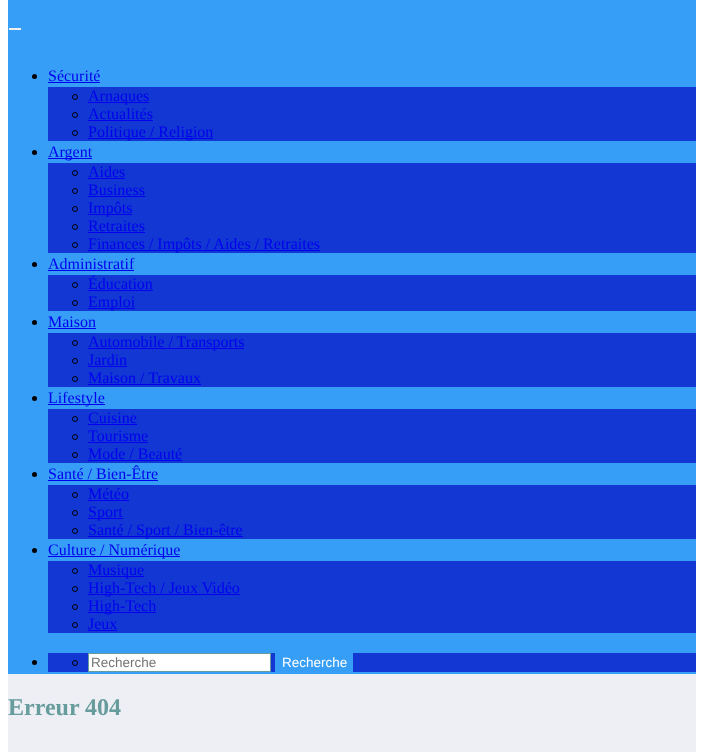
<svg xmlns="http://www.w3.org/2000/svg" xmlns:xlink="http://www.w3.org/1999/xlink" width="704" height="752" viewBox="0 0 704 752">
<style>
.cls-1{font:16px Liberation Serif;fill:#0000ee}
.cls-2{font:13.5px Liberation Sans;fill:#757575}
.cls-3{font:13.5px Liberation Sans;fill:#ffffff}
.cls-4{font:bold 24px Liberation Serif;fill:#669c9b}
</style>
<rect width="100%" height="100%" fill="#ffffff"/>
<rect fill="#eeeef5" x="8" y="674" width="688" height="78"/>
<rect fill="#369ef6" x="8" y="0" width="688" height="674"/>
<rect fill="#efefef" stroke="#369ef6" x="8.5" y="27.5" width="13" height="3"/>
<circle fill="#000000" cx="34.5" cy="76.5" r="2.5"/>
<rect fill="#0000ee" x="48" y="82" width="52" height="1"/>
<rect fill="#1237d3" x="48" y="87" width="648" height="54"/>
<circle fill="none" stroke="#000000" cx="75" cy="97" r="2.5"/>
<rect fill="#0000ee" x="88" y="102" width="61" height="1"/>
<circle fill="none" stroke="#000000" cx="75" cy="115" r="2.5"/>
<rect fill="#0000ee" x="88" y="120" width="65" height="1"/>
<circle fill="none" stroke="#000000" cx="75" cy="133" r="2.5"/>
<rect fill="#0000ee" x="88" y="138" width="125" height="1"/>
<circle fill="#000000" cx="34.5" cy="152.5" r="2.5"/>
<rect fill="#0000ee" x="48" y="158" width="44" height="1"/>
<rect fill="#1237d3" x="48" y="163" width="648" height="90"/>
<circle fill="none" stroke="#000000" cx="75" cy="173" r="2.5"/>
<rect fill="#0000ee" x="88" y="178" width="37" height="1"/>
<circle fill="none" stroke="#000000" cx="75" cy="191" r="2.5"/>
<rect fill="#0000ee" x="88" y="196" width="57" height="1"/>
<circle fill="none" stroke="#000000" cx="75" cy="209" r="2.5"/>
<rect fill="#0000ee" x="88" y="214" width="44" height="1"/>
<circle fill="none" stroke="#000000" cx="75" cy="227" r="2.5"/>
<rect fill="#0000ee" x="88" y="232" width="57" height="1"/>
<circle fill="none" stroke="#000000" cx="75" cy="245" r="2.5"/>
<rect fill="#0000ee" x="88" y="250" width="232" height="1"/>
<circle fill="#000000" cx="34.5" cy="264.5" r="2.5"/>
<rect fill="#0000ee" x="48" y="270" width="86" height="1"/>
<rect fill="#1237d3" x="48" y="275" width="648" height="36"/>
<circle fill="none" stroke="#000000" cx="75" cy="285" r="2.5"/>
<rect fill="#0000ee" x="88" y="290" width="65" height="1"/>
<circle fill="none" stroke="#000000" cx="75" cy="303" r="2.5"/>
<rect fill="#0000ee" x="88" y="308" width="47" height="1"/>
<circle fill="#000000" cx="34.5" cy="322.5" r="2.5"/>
<rect fill="#0000ee" x="48" y="328" width="48" height="1"/>
<rect fill="#1237d3" x="48" y="333" width="648" height="54"/>
<circle fill="none" stroke="#000000" cx="75" cy="343" r="2.5"/>
<rect fill="#0000ee" x="88" y="348" width="156" height="1"/>
<circle fill="none" stroke="#000000" cx="75" cy="361" r="2.5"/>
<rect fill="#0000ee" x="88" y="366" width="39" height="1"/>
<circle fill="none" stroke="#000000" cx="75" cy="379" r="2.5"/>
<rect fill="#0000ee" x="88" y="384" width="113" height="1"/>
<circle fill="#000000" cx="34.5" cy="398.5" r="2.5"/>
<rect fill="#0000ee" x="48" y="404" width="57" height="1"/>
<rect fill="#1237d3" x="48" y="409" width="648" height="54"/>
<circle fill="none" stroke="#000000" cx="75" cy="419" r="2.5"/>
<rect fill="#0000ee" x="88" y="424" width="49" height="1"/>
<circle fill="none" stroke="#000000" cx="75" cy="437" r="2.5"/>
<rect fill="#0000ee" x="88" y="442" width="60" height="1"/>
<circle fill="none" stroke="#000000" cx="75" cy="455" r="2.5"/>
<rect fill="#0000ee" x="88" y="460" width="94" height="1"/>
<circle fill="#000000" cx="34.5" cy="474.5" r="2.5"/>
<rect fill="#0000ee" x="48" y="480" width="110" height="1"/>
<rect fill="#1237d3" x="48" y="485" width="648" height="54"/>
<circle fill="none" stroke="#000000" cx="75" cy="495" r="2.5"/>
<rect fill="#0000ee" x="88" y="500" width="41" height="1"/>
<circle fill="none" stroke="#000000" cx="75" cy="513" r="2.5"/>
<rect fill="#0000ee" x="88" y="518" width="35" height="1"/>
<circle fill="none" stroke="#000000" cx="75" cy="531" r="2.5"/>
<rect fill="#0000ee" x="88" y="536" width="155" height="1"/>
<circle fill="#000000" cx="34.5" cy="550.5" r="2.5"/>
<rect fill="#0000ee" x="48" y="556" width="132" height="1"/>
<rect fill="#1237d3" x="48" y="561" width="648" height="72"/>
<circle fill="none" stroke="#000000" cx="75" cy="571" r="2.5"/>
<rect fill="#0000ee" x="88" y="576" width="56" height="1"/>
<circle fill="none" stroke="#000000" cx="75" cy="589" r="2.5"/>
<rect fill="#0000ee" x="88" y="594" width="152" height="1"/>
<circle fill="none" stroke="#000000" cx="75" cy="607" r="2.5"/>
<rect fill="#0000ee" x="88" y="612" width="68" height="1"/>
<circle fill="none" stroke="#000000" cx="75" cy="625" r="2.5"/>
<rect fill="#0000ee" x="88" y="630" width="29" height="1"/>
<circle fill="#000000" cx="34.5" cy="662.5" r="2.5"/>
<rect fill="#1237d3" x="48" y="653" width="648" height="19"/>
<circle fill="none" stroke="#000000" cx="75" cy="663" r="2.5"/>
<rect fill="#ffffff" stroke="#669c9b" x="88.5" y="653.5" width="182" height="18"/>
<rect fill="#369ef6" x="275" y="653" width="78" height="19"/>
<text class="cls-1" x="48" y="81">Sécurité</text>
<text class="cls-1"><tspan x="88" y="101">Arnaques</tspan><tspan x="88" y="119">Actualités</tspan><tspan x="88" y="137">Politique / Religion</tspan></text>
<text class="cls-1" x="48" y="157">Argent</text>
<text class="cls-1"><tspan x="88" y="177">Aides</tspan><tspan x="88" y="195">Business</tspan><tspan x="88" y="213">Impôts</tspan><tspan x="88" y="231">Retraites</tspan><tspan x="88" y="249">Finances / Impôts / Aides / Retraites</tspan></text>
<text class="cls-1" x="48" y="269">Administratif</text>
<text class="cls-1"><tspan x="88" y="289">Éducation</tspan><tspan x="88" y="307">Emploi</tspan></text>
<text class="cls-1" x="48" y="327">Maison</text>
<text class="cls-1"><tspan x="88" y="347">Automobile / Transports</tspan><tspan x="88" y="365">Jardin</tspan><tspan x="88" y="383">Maison / Travaux</tspan></text>
<text class="cls-1" x="48" y="403">Lifestyle</text>
<text class="cls-1"><tspan x="88" y="423">Cuisine</tspan><tspan x="88" y="441">Tourisme</tspan><tspan x="88" y="459">Mode / Beauté</tspan></text>
<text class="cls-1" x="48" y="479">Santé / Bien-Être</text>
<text class="cls-1"><tspan x="88" y="499">Météo</tspan><tspan x="88" y="517">Sport</tspan><tspan x="88" y="535">Santé / Sport / Bien-être</tspan></text>
<text class="cls-1" x="48" y="555">Culture / Numérique</text>
<text class="cls-1"><tspan x="88" y="575">Musique</tspan><tspan x="88" y="593">High-Tech / Jeux Vidéo</tspan><tspan x="88" y="611">High-Tech</tspan><tspan x="88" y="629">Jeux</tspan></text>
<text class="cls-2" x="91" y="667">Recherche</text>
<text class="cls-3" x="282" y="667">Recherche</text>
<text class="cls-4" x="8" y="715">Erreur 404</text>
</svg>
